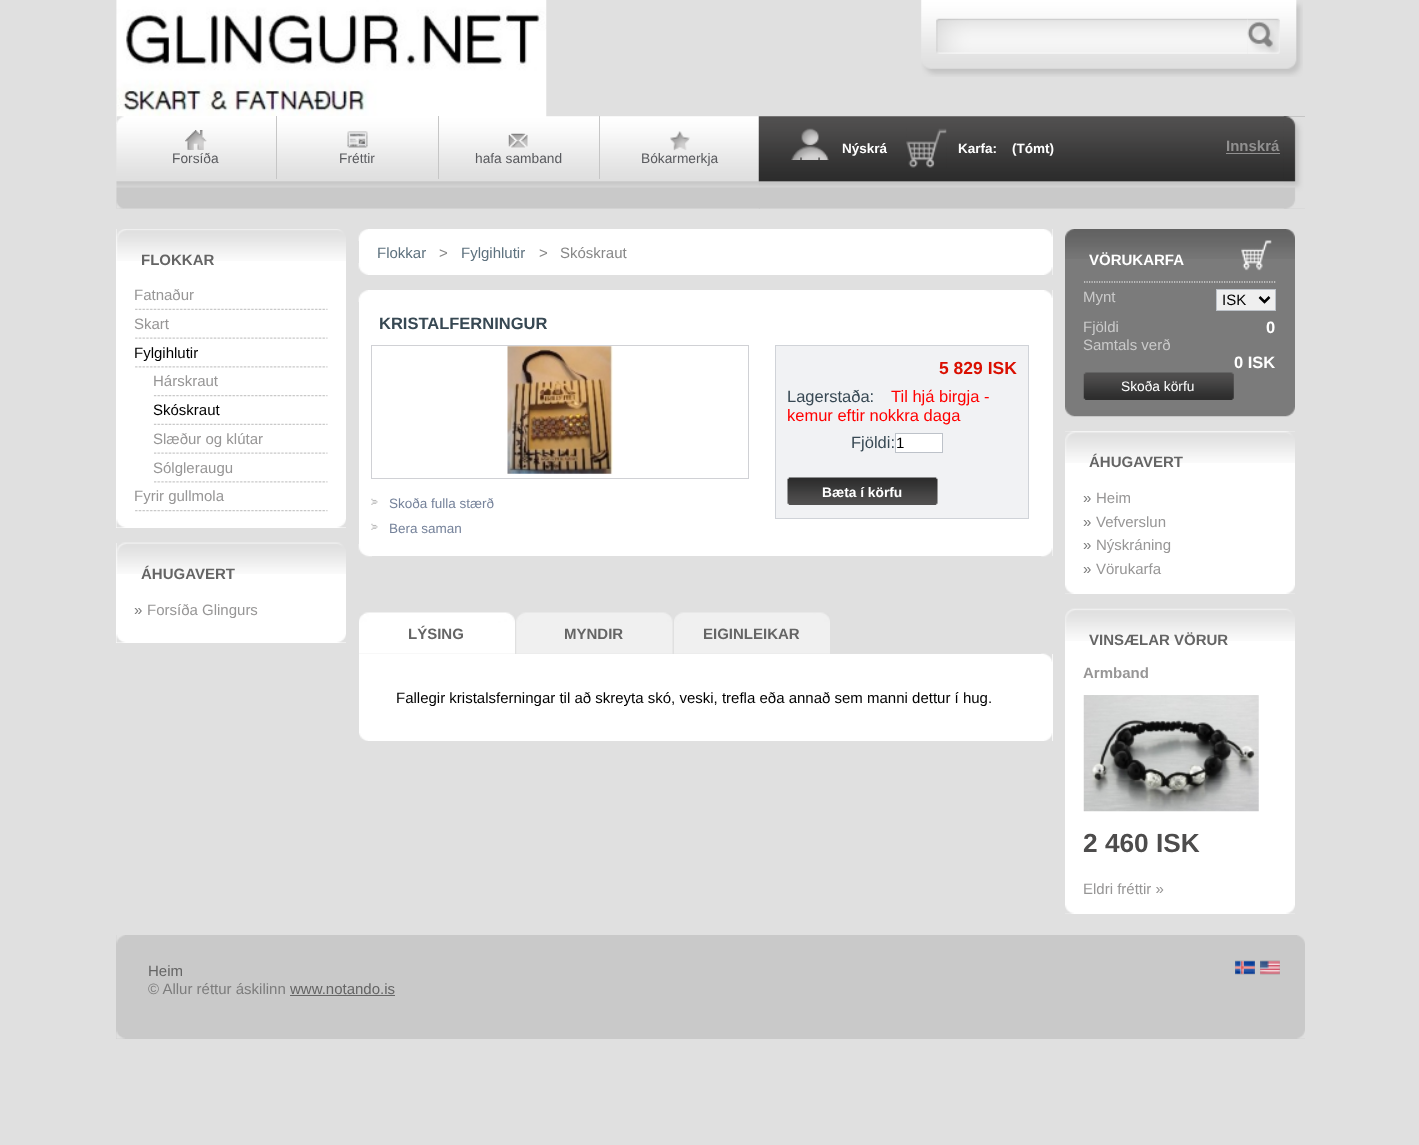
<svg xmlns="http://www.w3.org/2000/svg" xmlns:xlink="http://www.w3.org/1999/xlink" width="1419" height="1145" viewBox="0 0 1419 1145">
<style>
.cls-1{font:bold 13.5px Liberation Sans;fill:#ffffff}
.cls-2{font:bold 15px Liberation Sans;fill:#919090}
.cls-3{font:13.75px Liberation Sans;fill:#595a5e}
.cls-4{font:bold 15px Liberation Sans;fill:#656565}
.cls-5{font:15px Liberation Sans;fill:#979696}
.cls-6{font:15px Liberation Sans;fill:#000000}
.cls-7{font:15px Liberation Sans;fill:#7d7d7d}
.cls-8{font:15px Liberation Sans;fill:#5d717e}
.cls-9{font:15px Liberation Sans;fill:#888888}
.cls-10{font:bold 16.5px Liberation Sans;fill:#374853}
.cls-11{font:bold 17.5px Liberation Sans;fill:#da0f00}
.cls-12{font:16.5px Liberation Sans;fill:#374853}
.cls-13{font:16.5px Liberation Sans;fill:#ff0000}
.cls-14{font:bold 13.75px Liberation Sans;fill:#ffffff}
.cls-15{font:13.5px Liberation Sans;fill:#76839b}
.cls-16{font:bold 15px Liberation Sans;fill:#ffffff}
.cls-17{font:15px Liberation Sans;fill:#cacaca}
.cls-18{font:bold 16.5px Liberation Sans;fill:#ffffff}
.cls-19{font:13.75px Liberation Sans;fill:#ffffff}
.cls-20{font:bold 15px Liberation Sans;fill:#979696}
.cls-21{font:bold 26.25px Liberation Sans;fill:#4d4c4c}
.cls-22{font:15px Liberation Sans;fill:#656565}
</style>
<rect width="100%" height="100%" fill="#e0e0e0"/>
<image xlink:href="image0.png" x="116" y="0" width="431" height="124"/>
<image xlink:href="image1.png" x="921" y="0" width="382" height="77"/>
<image xlink:href="image2.png" x="936" y="18" width="312" height="36"/>
<image xlink:href="image3.png" x="1247" y="18" width="33" height="36"/>
<image xlink:href="image8.png" x="116" y="116" width="644" height="93"/>
<image xlink:href="image4.png" x="758" y="116" width="547" height="93"/>
<image xlink:href="image5.png" x="1283" y="116" width="22" height="93"/>
<image xlink:href="image6.png" x="791" y="128" width="38" height="32"/>
<image xlink:href="image7.png" x="906" y="128" width="41" height="40"/>
<rect fill="#919090" x="1226" y="153" width="54" height="1"/>
<image xlink:href="image9.png" x="116" y="116" width="8" height="93"/>
<rect fill="#c6c6c6" x="276" y="116" width="1" height="63"/>
<image xlink:href="image10.png" x="185" y="130" width="22" height="20"/>
<rect fill="#c6c6c6" x="438" y="116" width="1" height="63"/>
<image xlink:href="image11.png" x="347" y="131" width="21" height="17"/>
<rect fill="#c6c6c6" x="599" y="116" width="1" height="63"/>
<image xlink:href="image12.png" x="508" y="133" width="20" height="15"/>
<image xlink:href="image13.png" x="670" y="131" width="20" height="20"/>
<rect fill="#ffffff" x="116" y="229" width="230" height="299"/>
<image xlink:href="image14.png" x="116" y="229" width="230" height="32"/>
<image xlink:href="image15.png" x="116" y="519" width="230" height="9"/>
<image xlink:href="image16.png" x="135" y="308" width="193" height="2"/>
<image xlink:href="image17.png" x="135" y="337" width="193" height="2"/>
<image xlink:href="image18.png" x="135" y="366" width="193" height="2"/>
<image xlink:href="image19.png" x="153" y="395" width="175" height="2"/>
<image xlink:href="image20.png" x="153" y="423" width="175" height="2"/>
<image xlink:href="image21.png" x="154" y="452" width="174" height="2"/>
<image xlink:href="image22.png" x="154" y="481" width="174" height="2"/>
<image xlink:href="image23.png" x="135" y="510" width="193" height="2"/>
<rect fill="#ffffff" x="116" y="543" width="230" height="100"/>
<image xlink:href="image24.png" x="116" y="542" width="230" height="32"/>
<image xlink:href="image15.png" x="116" y="634" width="230" height="9"/>
<rect fill="#ffffff" x="359" y="229" width="694" height="46"/>
<image xlink:href="image25.png" x="358" y="229" width="10" height="12"/>
<image xlink:href="image26.png" x="1044" y="229" width="9" height="8"/>
<image xlink:href="image27.png" x="358" y="263" width="10" height="12"/>
<image xlink:href="image28.png" x="1044" y="267" width="9" height="8"/>
<rect fill="#ffffff" x="359" y="290" width="694" height="266"/>
<image xlink:href="image29.png" x="358" y="290" width="10" height="12"/>
<image xlink:href="image30.png" x="1044" y="290" width="9" height="8"/>
<image xlink:href="image31.png" x="358" y="544" width="14" height="13"/>
<image xlink:href="image32.png" x="1041" y="548" width="12" height="9"/>
<rect fill="#f1f2f4" stroke="#d0d3d8" x="775.5" y="345.5" width="253" height="173"/>
<rect fill="#ffffff" stroke="#bdc2c9" x="895.5" y="433.5" width="47" height="19"/>
<rect fill="#efefef" x="788" y="478" width="150" height="27"/>
<image xlink:href="image33.png" x="787" y="477" width="151" height="28"/>
<rect fill="none" stroke="#d0d1d5" x="371.5" y="345.5" width="377" height="133"/>
<image xlink:href="image34.png" x="507" y="346" width="106" height="128"/>
<image xlink:href="image35.png" x="371" y="498" width="7" height="7"/>
<image xlink:href="image35.png" x="371" y="523" width="7" height="7"/>
<image xlink:href="image36.png" x="359" y="612" width="156" height="42"/>
<image xlink:href="image37.png" x="516" y="612" width="157" height="42"/>
<image xlink:href="image38.png" x="674" y="612" width="156" height="42"/>
<rect fill="#ffffff" x="359" y="654" width="694" height="87"/>
<image xlink:href="image39.png" x="1041" y="653" width="12" height="9"/>
<image xlink:href="image40.png" x="359" y="733" width="9" height="8"/>
<image xlink:href="image41.png" x="1044" y="733" width="9" height="8"/>
<rect fill="#7b7b7b" x="1065" y="259" width="230" height="148"/>
<image xlink:href="image42.png" x="1065" y="229" width="230" height="30"/>
<image xlink:href="image43.png" x="1241" y="240" width="31" height="31"/>
<image xlink:href="image44.png" x="1065" y="407" width="230" height="10"/>
<path fill="none" stroke="#ffffff" stroke-width="1.2" stroke-dasharray="1.25 1.25" d="M1084 282H1276"/>
<rect fill="#efefef" stroke="#bdc2c9" x="1216.5" y="289.5" width="59" height="21"/>
<path fill="none" stroke="#000000" stroke-width="2.5" d="M1259.5 297L1264.5 302L1269.5 297"/>
<image xlink:href="image45.png" x="1083" y="372" width="151" height="28"/>
<rect fill="#ffffff" x="1065" y="431" width="230" height="163"/>
<image xlink:href="image46.png" x="1065" y="431" width="230" height="32"/>
<image xlink:href="image47.png" x="1065" y="585" width="230" height="9"/>
<rect fill="#ffffff" x="1065" y="641" width="230" height="273"/>
<image xlink:href="image48.png" x="1065" y="608" width="230" height="33"/>
<image xlink:href="image49.png" x="1065" y="905" width="230" height="9"/>
<image xlink:href="image50.png" x="1083" y="695" width="176" height="117"/>
<rect fill="#c9c9c9" x="116" y="935" width="1189" height="104"/>
<image xlink:href="image51.png" x="116" y="935" width="9" height="104"/>
<image xlink:href="image52.png" x="1297" y="935" width="8" height="104"/>
<image xlink:href="image53.png" x="1235" y="960" width="20" height="15"/>
<image xlink:href="image54.png" x="1260" y="960" width="20" height="15"/>
<rect fill="#666666" x="290" y="995" width="105" height="1"/>
<text class="cls-1" x="842" y="153">Nýskrá</text>
<text class="cls-1" x="958" y="153">Karfa:</text>
<text class="cls-1" x="1012" y="153">(Tómt)</text>
<text class="cls-2" x="1226" y="151">Innskrá</text>
<text class="cls-3" x="172" y="163">Forsíða</text>
<text class="cls-3" x="339" y="163">Fréttir</text>
<text class="cls-3" x="475" y="163">hafa samband</text>
<text class="cls-3" x="641" y="163">Bókarmerkja</text>
<text class="cls-4" x="141" y="265">FLOKKAR</text>
<text class="cls-5"><tspan x="134" y="300">Fatnaður</tspan><tspan x="134" y="329">Skart</tspan></text>
<text class="cls-6" x="134" y="358">Fylgihlutir</text>
<text class="cls-5" x="153" y="386">Hárskraut</text>
<text class="cls-6" x="153" y="415">Skóskraut</text>
<text class="cls-5"><tspan x="153" y="444">Slæður og klútar</tspan><tspan x="153" y="473">Sólgleraugu</tspan></text>
<text class="cls-5" x="134" y="501">Fyrir gullmola</text>
<text class="cls-4" x="141" y="579">ÁHUGAVERT</text>
<text class="cls-7" x="134" y="615">»</text>
<text class="cls-5" x="147" y="615">Forsíða Glingurs</text>
<text class="cls-8" x="377" y="258">Flokkar</text>
<text class="cls-9" x="439" y="258">&gt;</text>
<text class="cls-8" x="461" y="258">Fylgihlutir</text>
<text class="cls-9" x="539" y="258">&gt;</text>
<text class="cls-9" x="560" y="258">Skóskraut</text>
<text class="cls-10" x="379" y="329">KRISTALFERNINGUR</text>
<text class="cls-11" x="939" y="374">5 829 ISK</text>
<text class="cls-12" x="787" y="402">Lagerstaða:</text>
<text class="cls-13" x="891" y="402">Til hjá birgja -</text>
<text class="cls-13" x="787" y="421">kemur eftir nokkra daga</text>
<text class="cls-12" x="851" y="448">Fjöldi:</text>
<text class="cls-6" x="896" y="448">1</text>
<text class="cls-14" x="822" y="497">Bæta í körfu</text>
<text class="cls-15"><tspan x="389" y="508">Skoða fulla stærð</tspan><tspan x="389" y="533">Bera saman</tspan></text>
<text class="cls-4" x="408" y="639">LÝSING</text>
<text class="cls-4" x="564" y="639">MYNDIR</text>
<text class="cls-4" x="703" y="639">EIGINLEIKAR</text>
<text class="cls-6" x="396" y="703">Fallegir kristalsferningar til að skreyta skó, veski, trefla eða annað sem manni dettur í hug.</text>
<text class="cls-16" x="1089" y="265">VÖRUKARFA</text>
<text class="cls-17" x="1083" y="302">Mynt</text>
<text class="cls-6" x="1222" y="305">ISK</text>
<text class="cls-17" x="1083" y="332">Fjöldi</text>
<text class="cls-18" x="1266" y="333">0</text>
<text class="cls-17" x="1083" y="350">Samtals verð</text>
<text class="cls-18" x="1234" y="368">0 ISK</text>
<text class="cls-19" x="1121" y="391">Skoða körfu</text>
<text class="cls-4" x="1089" y="467">ÁHUGAVERT</text>
<text class="cls-7" x="1083" y="503">»</text>
<text class="cls-5" x="1096" y="503">Heim</text>
<text class="cls-7" x="1083" y="527">»</text>
<text class="cls-5" x="1096" y="527">Vefverslun</text>
<text class="cls-7" x="1083" y="550">»</text>
<text class="cls-5" x="1096" y="550">Nýskráning</text>
<text class="cls-7" x="1083" y="574">»</text>
<text class="cls-5" x="1096" y="574">Vörukarfa</text>
<text class="cls-4" x="1089" y="645">VINSÆLAR VÖRUR</text>
<text class="cls-20" x="1083" y="678">Armband</text>
<text class="cls-21" x="1083" y="852">2 460 ISK</text>
<text class="cls-5" x="1083" y="894">Eldri fréttir »</text>
<text class="cls-22" x="148" y="976">Heim</text>
<text class="cls-7" x="148" y="994">© Allur réttur áskilinn</text>
<text class="cls-22" x="290" y="994">www.notando.is</text>
</svg>
